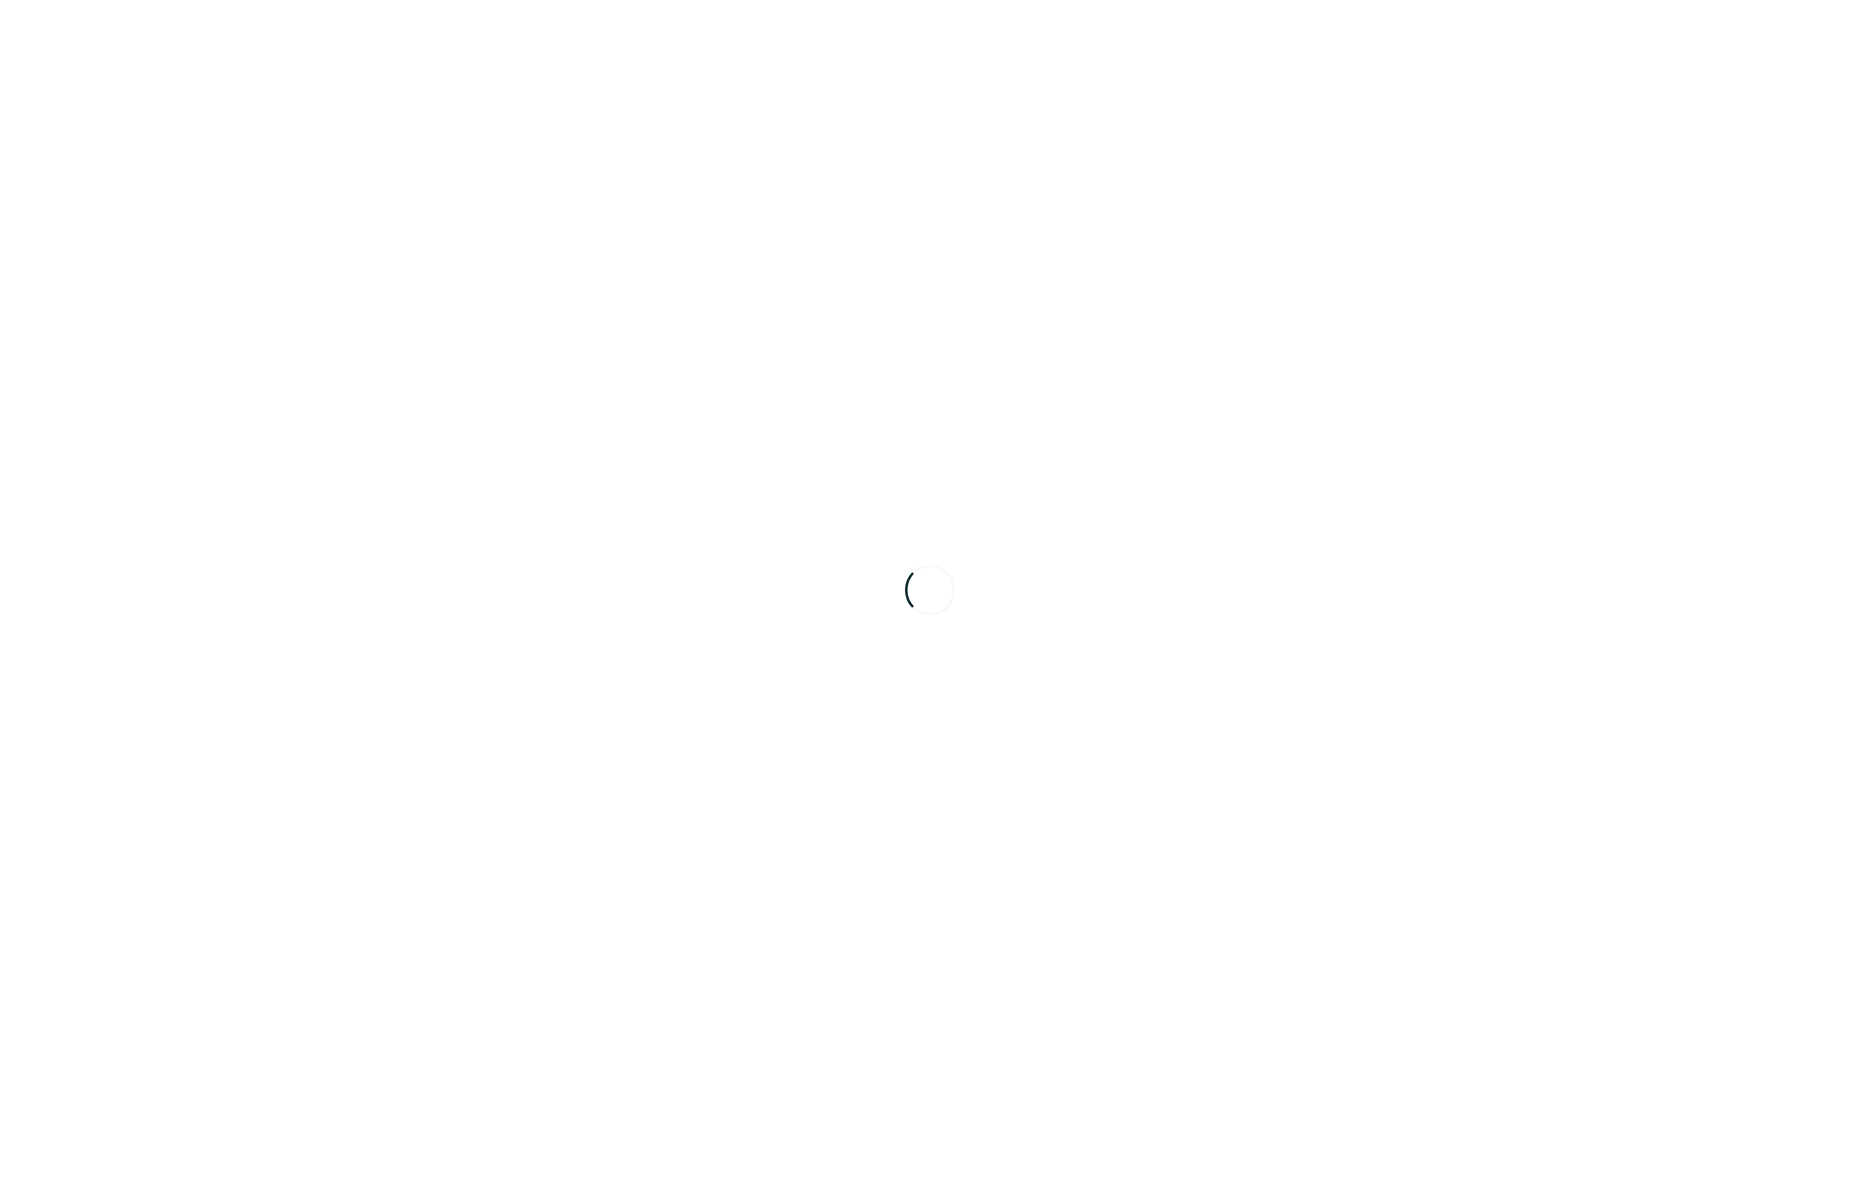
<svg xmlns="http://www.w3.org/2000/svg" xmlns:xlink="http://www.w3.org/1999/xlink" width="1859" height="1178" viewBox="0 0 1859 1178">
<rect width="100%" height="100%" fill="#ffffff"/>
<path fill="none" stroke="#f8f8f8" stroke-width="2.5" d="M913 573C919 567.5 927 565 934.5 566.5C962.5 572.5 958.5 614 930 614C923.5 614 917.5 611 913 607"/>
<path fill="none" stroke="#0a282b" stroke-width="2.5" d="M913 607C904 597.5 904 582.5 913 573"/>
</svg>
